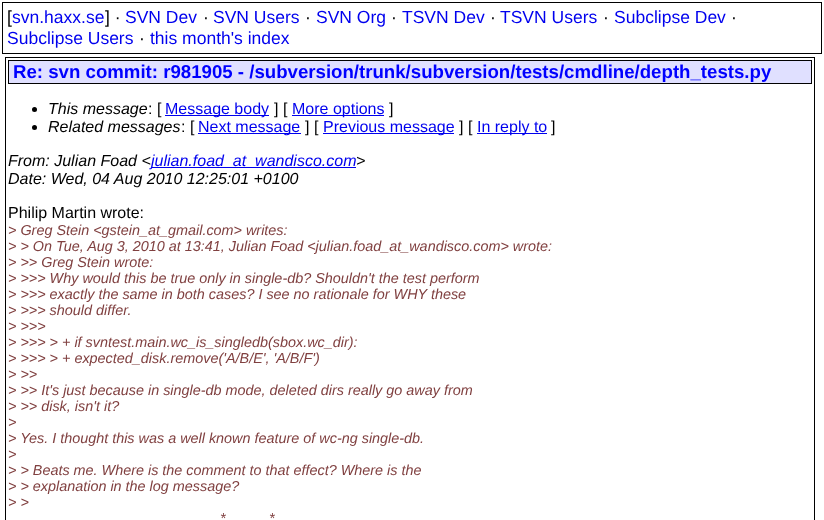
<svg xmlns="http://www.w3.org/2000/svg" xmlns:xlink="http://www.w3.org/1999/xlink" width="824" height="520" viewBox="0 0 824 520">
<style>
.cls-1{font:17.5px Liberation Sans;fill:#000000}
.cls-2{font:17.5px Liberation Sans;fill:#0000ee}
.cls-3{font:bold 18.65px Liberation Sans;fill:#0000ff}
.cls-4{font:italic 16px Liberation Sans;fill:#000000}
.cls-5{font:16px Liberation Sans;fill:#000000}
.cls-6{font:16px Liberation Sans;fill:#0000ee}
.cls-7{font:italic 16px Liberation Sans;fill:#0000ee}
.cls-8{font:italic 14.4px Liberation Sans;fill:#804040}
</style>
<rect width="100%" height="100%" fill="#ffffff"/>
<rect fill="none" stroke="#000000" x="2.5" y="2.5" width="819" height="51"/>
<rect fill="none" stroke="#000000" x="5.5" y="57.5" width="809" height="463"/>
<rect fill="#e0e0ff" stroke="#000000" x="8.5" y="60.5" width="803" height="23"/>
<circle fill="#000000" cx="34.5" cy="109.5" r="2.5"/>
<rect fill="#0000ee" x="165" y="115" width="104" height="1"/>
<rect fill="#0000ee" x="292" y="115" width="92" height="1"/>
<circle fill="#000000" cx="34.5" cy="127.5" r="2.5"/>
<rect fill="#0000ee" x="198" y="133" width="103" height="1"/>
<rect fill="#0000ee" x="323" y="133" width="131" height="1"/>
<rect fill="#0000ee" x="477" y="133" width="70" height="1"/>
<rect fill="#0000ee" x="151" y="167" width="205" height="1"/>
<text class="cls-1" x="7" y="23">[</text>
<text class="cls-2" x="12" y="23">svn.haxx.se</text>
<text class="cls-1" x="105" y="23">] ·</text>
<text class="cls-2" x="125" y="23">SVN Dev</text>
<text class="cls-1" x="203" y="23">·</text>
<text class="cls-2" x="213" y="23">SVN Users</text>
<text class="cls-1" x="305" y="23">·</text>
<text class="cls-2" x="316" y="23">SVN Org</text>
<text class="cls-1" x="391" y="23">·</text>
<text class="cls-2" x="402" y="23">TSVN Dev</text>
<text class="cls-1" x="490" y="23">·</text>
<text class="cls-2" x="500" y="23">TSVN Users</text>
<text class="cls-1" x="603" y="23">·</text>
<text class="cls-2" x="614" y="23">Subclipse Dev</text>
<text class="cls-1" x="731" y="23">·</text>
<text class="cls-2" x="7" y="44">Subclipse Users</text>
<text class="cls-1" x="139" y="44">·</text>
<text class="cls-2" x="150" y="44">this month's index</text>
<text class="cls-3" x="13" y="78">Re: svn commit: r981905 - /subversion/trunk/subversion/tests/cmdline/depth_tests.py</text>
<text class="cls-4" x="48" y="114">This message</text>
<text class="cls-5" x="148" y="114">: [</text>
<text class="cls-6" x="165" y="114">Message body</text>
<text class="cls-5" x="274" y="114">] [</text>
<text class="cls-6" x="292" y="114">More options</text>
<text class="cls-5" x="389" y="114">]</text>
<text class="cls-4" x="48" y="132">Related messages</text>
<text class="cls-5" x="181" y="132">: [</text>
<text class="cls-6" x="198" y="132">Next message</text>
<text class="cls-5" x="305" y="132">] [</text>
<text class="cls-6" x="323" y="132">Previous message</text>
<text class="cls-5" x="459" y="132">] [</text>
<text class="cls-6" x="477" y="132">In reply to</text>
<text class="cls-5" x="551" y="132">]</text>
<text class="cls-4" x="8" y="166">From: Julian Foad &lt;</text>
<text class="cls-7" x="151" y="166">julian.foad_at_wandisco.com</text>
<text class="cls-4" x="356" y="166">&gt;</text>
<text class="cls-4" x="8" y="184">Date: Wed, 04 Aug 2010 12:25:01 +0100</text>
<text class="cls-5" x="8" y="218">Philip Martin wrote:</text>
<text class="cls-8"><tspan x="8" y="235">&gt; Greg Stein &lt;gstein_at_gmail.com&gt; writes:</tspan><tspan x="8" y="251">&gt; &gt; On Tue, Aug 3, 2010 at 13:41, Julian Foad &lt;julian.foad_at_wandisco.com&gt; wrote:</tspan><tspan x="8" y="267">&gt; &gt;&gt; Greg Stein wrote:</tspan><tspan x="8" y="283">&gt; &gt;&gt;&gt; Why would this be true only in single-db? Shouldn't the test perform</tspan><tspan x="8" y="299">&gt; &gt;&gt;&gt; exactly the same in both cases? I see no rationale for WHY these</tspan><tspan x="8" y="315">&gt; &gt;&gt;&gt; should differ.</tspan><tspan x="8" y="331">&gt; &gt;&gt;&gt;</tspan><tspan x="8" y="347">&gt; &gt;&gt;&gt; &gt; + if svntest.main.wc_is_singledb(sbox.wc_dir):</tspan><tspan x="8" y="363">&gt; &gt;&gt;&gt; &gt; + expected_disk.remove('A/B/E', 'A/B/F')</tspan><tspan x="8" y="379">&gt; &gt;&gt;</tspan><tspan x="8" y="395">&gt; &gt;&gt; It's just because in single-db mode, deleted dirs really go away from</tspan><tspan x="8" y="411">&gt; &gt;&gt; disk, isn't it?</tspan><tspan x="8" y="427">&gt;</tspan><tspan x="8" y="443">&gt; Yes. I thought this was a well known feature of wc-ng single-db.</tspan><tspan x="8" y="459">&gt;</tspan><tspan x="8" y="475">&gt; &gt; Beats me. Where is the comment to that effect? Where is the</tspan><tspan x="8" y="491">&gt; &gt; explanation in the log message?</tspan><tspan x="8" y="507">&gt; &gt;</tspan></text>
<text class="cls-8" x="220" y="523">*</text>
<text class="cls-8" x="269" y="523">*</text>
</svg>
